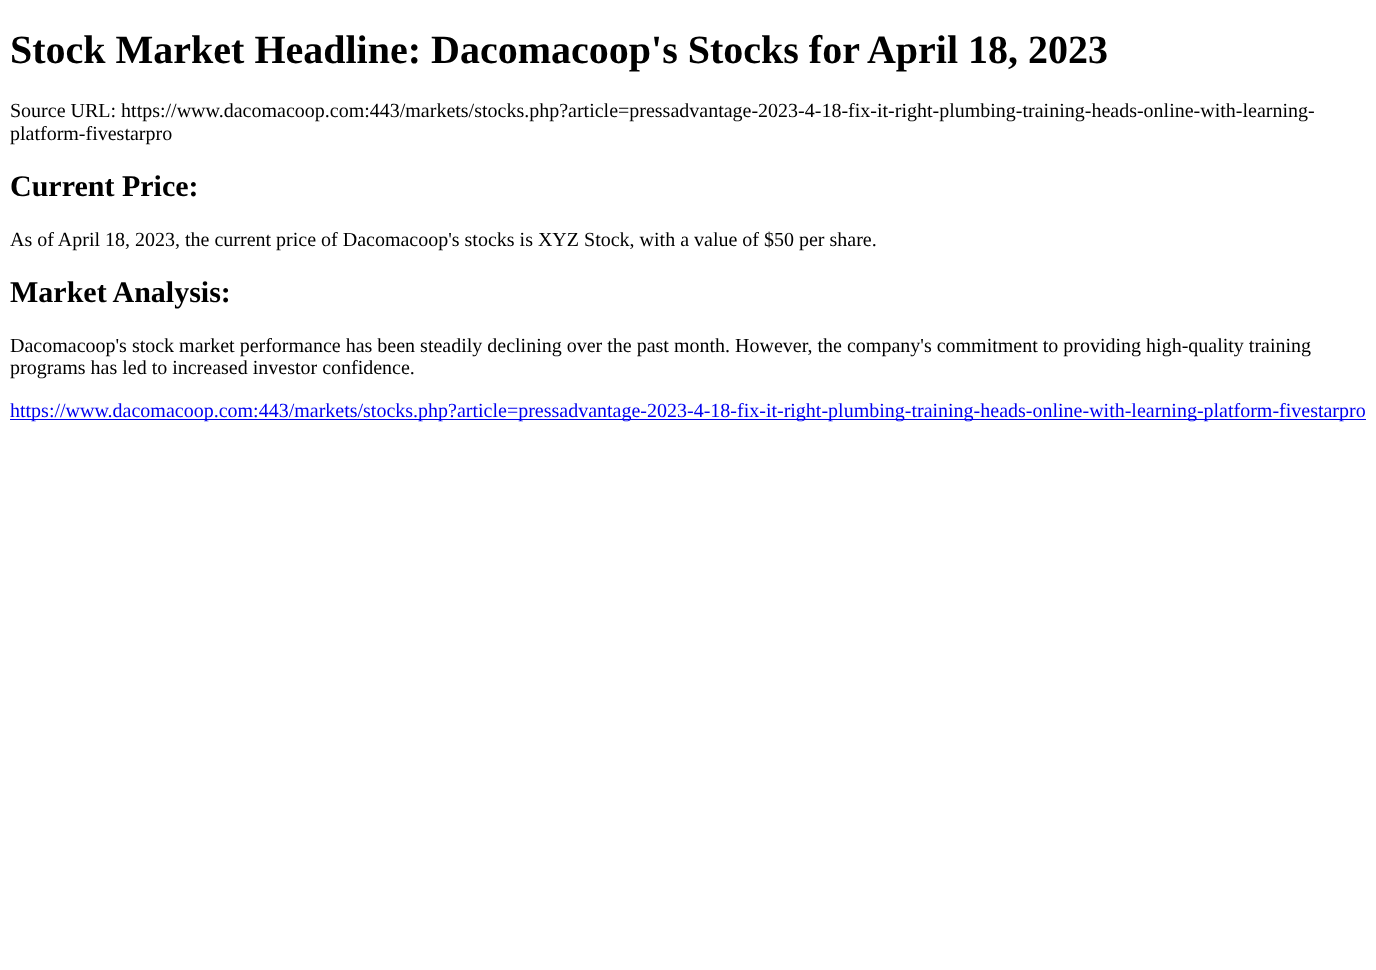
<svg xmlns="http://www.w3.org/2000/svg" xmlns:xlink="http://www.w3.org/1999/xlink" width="1376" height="970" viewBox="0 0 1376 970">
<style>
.cls-1{font:bold 40px Liberation Serif;fill:#000000}
.cls-2{font:20px Liberation Serif;fill:#000000}
.cls-3{font:bold 30px Liberation Serif;fill:#000000}
.cls-4{font:20px Liberation Serif;fill:#0000ee}
</style>
<rect width="100%" height="100%" fill="#ffffff"/>
<rect fill="#0000ee" x="10" y="419" width="1356" height="1"/>
<text class="cls-1" x="10" y="63">Stock Market Headline: Dacomacoop's Stocks for April 18, 2023</text>
<text class="cls-2"><tspan x="10" y="117">Source URL: https://www.dacomacoop.com:443/markets/stocks.php?article=pressadvantage-2023-4-18-fix-it-right-plumbing-training-heads-online-with-learning-</tspan><tspan x="10" y="140">platform-fivestarpro</tspan></text>
<text class="cls-3" x="10" y="196">Current Price:</text>
<text class="cls-2" x="10" y="246">As of April 18, 2023, the current price of Dacomacoop's stocks is XYZ Stock, with a value of $50 per share.</text>
<text class="cls-3" x="10" y="302">Market Analysis:</text>
<text class="cls-2"><tspan x="10" y="352">Dacomacoop's stock market performance has been steadily declining over the past month. However, the company's commitment to providing high-quality training</tspan><tspan x="10" y="374">programs has led to increased investor confidence.</tspan></text>
<text class="cls-4" x="10" y="417">https://www.dacomacoop.com:443/markets/stocks.php?article=pressadvantage-2023-4-18-fix-it-right-plumbing-training-heads-online-with-learning-platform-fivestarpro</text>
</svg>
